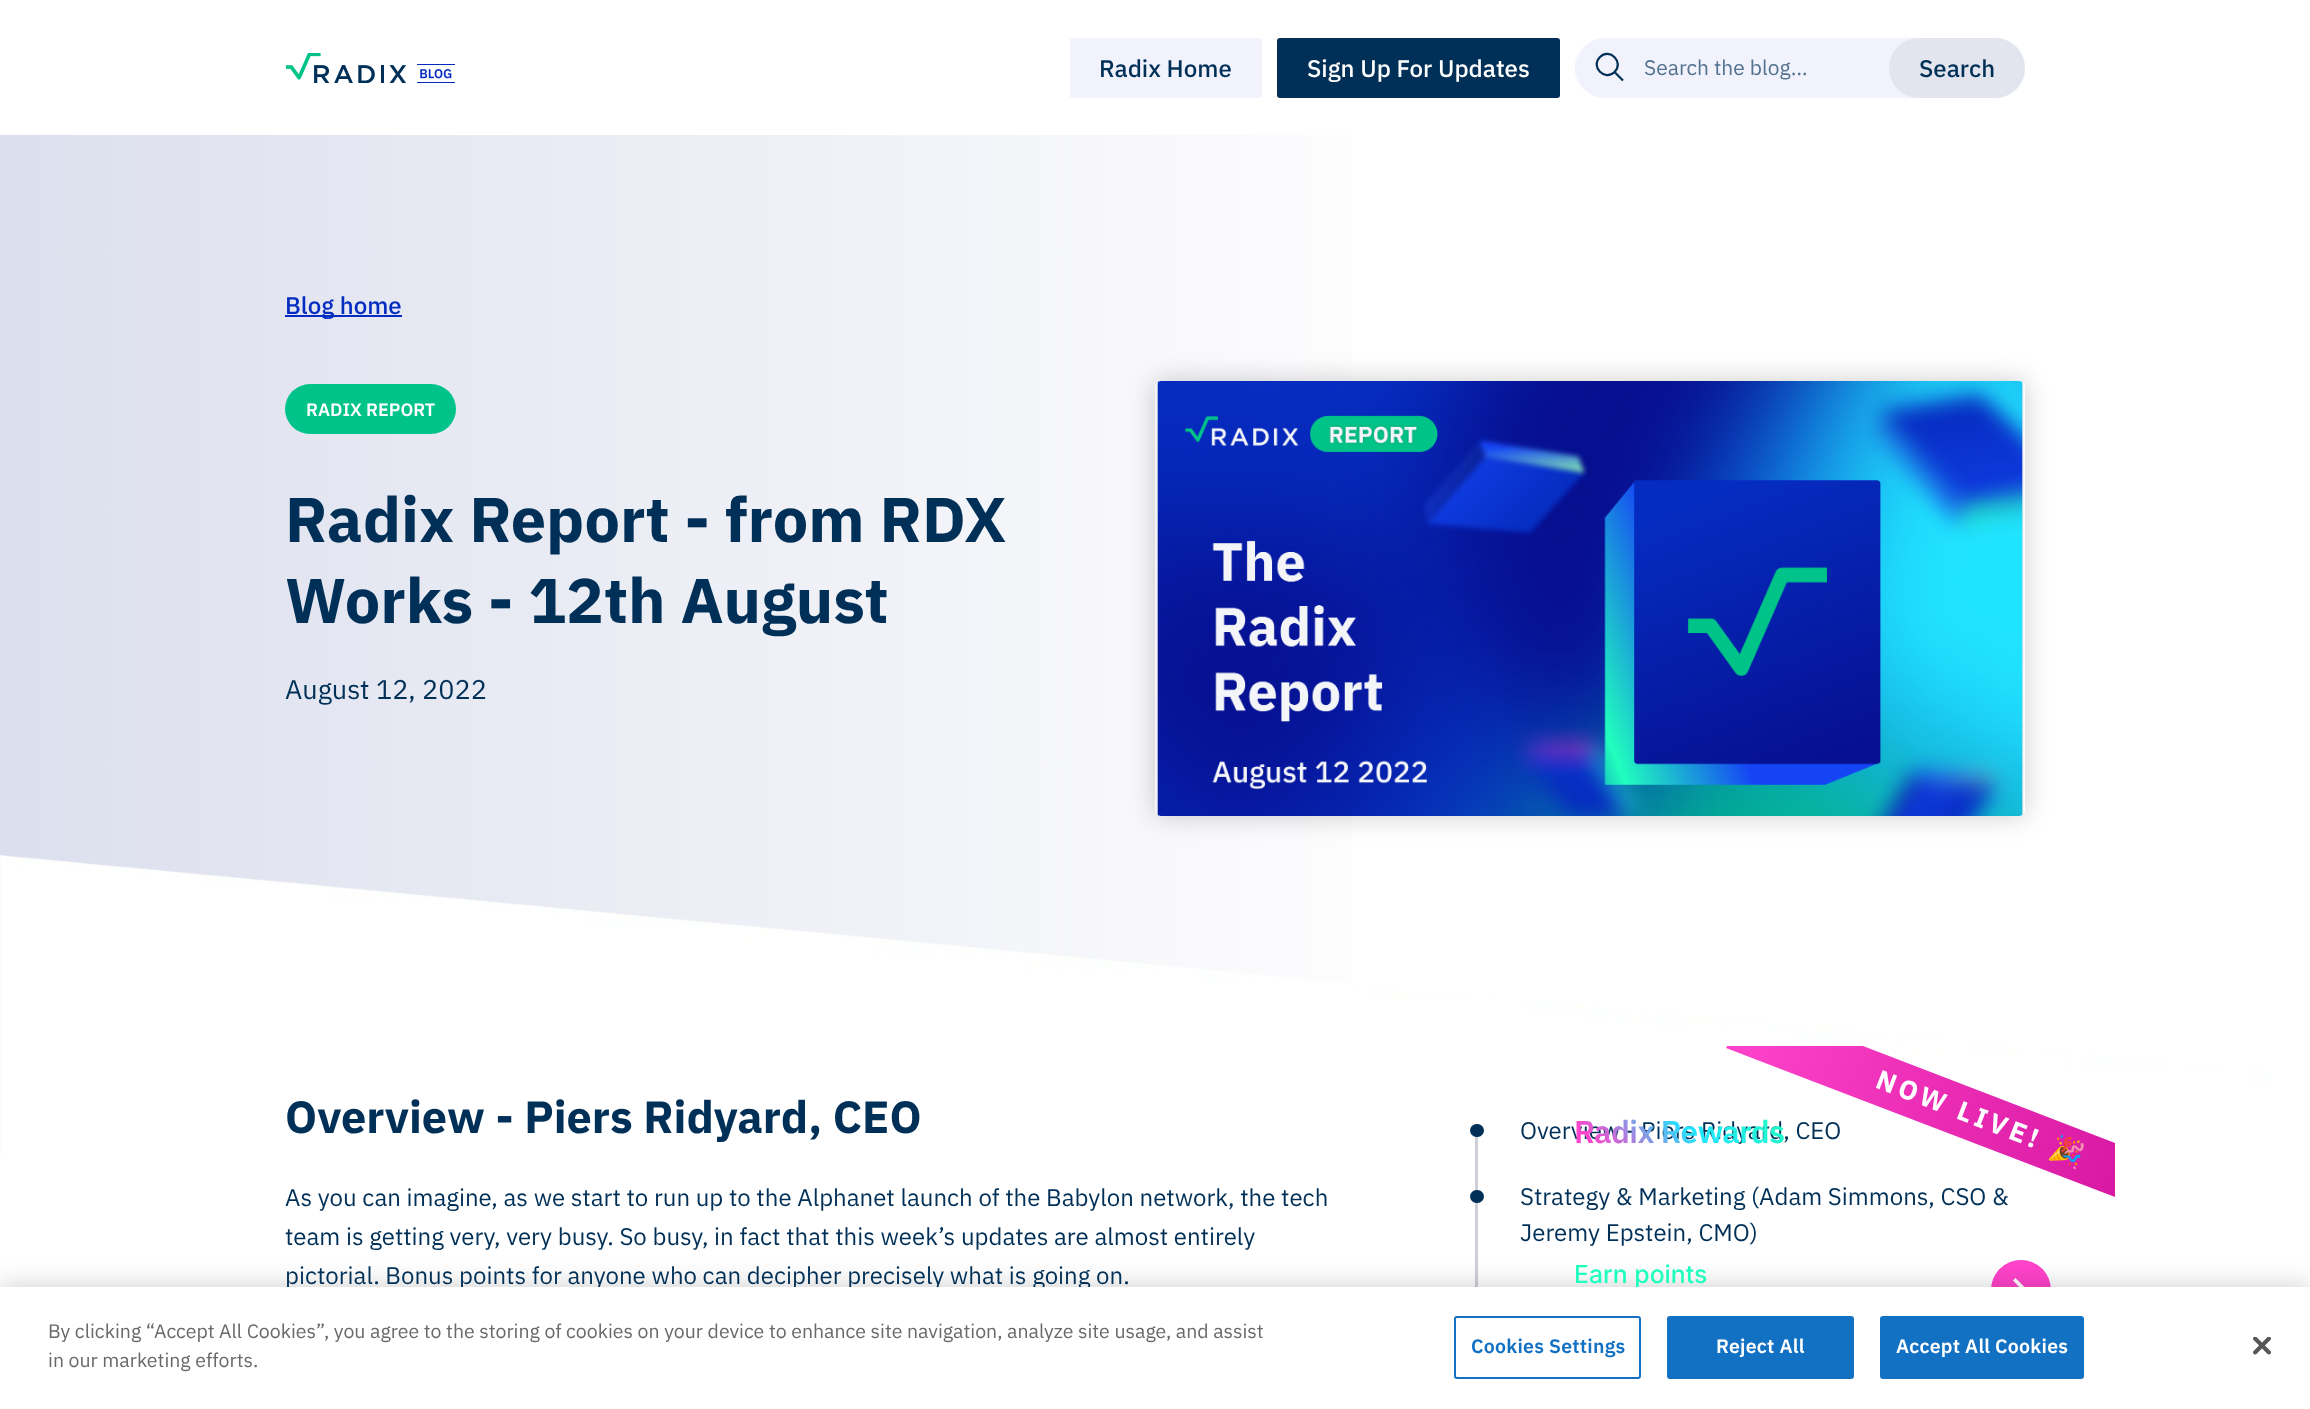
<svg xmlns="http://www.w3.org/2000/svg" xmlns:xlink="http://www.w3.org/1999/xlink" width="2310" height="1409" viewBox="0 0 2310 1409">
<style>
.cls-1{font:500 24px IBM Plex Sans;fill:#003057}
.cls-2{font:500 24px IBM Plex Sans;fill:#ffffff}
.cls-3{font:21px IBM Plex Sans;fill:#52728f}
.cls-4{font:500 24px IBM Plex Sans;fill:#052cc0}
.cls-5{font:600 18px IBM Plex Sans;fill:#ffffff}
.cls-6{font:bold 63px IBM Plex Sans;fill:#003057}
.cls-7{font:27px IBM Plex Sans;fill:#003057}
.cls-8{font:500 24.75px Inter;fill:#21ffbe}
.cls-9{font:bold 45px IBM Plex Sans;fill:#003057}
.cls-10{font:24px IBM Plex Sans;fill:#003057}
.cls-11{font:600 31.5px IBM Plex Sans;letter-spacing:-0.6px;fill:url(#g2)}
.cls-12{font:bold 27px Noto Color Emoji;letter-spacing:4px;fill:#ffffff}
.cls-13{font:bold 27px IBM Plex Sans;letter-spacing:4px;fill:#ffffff}
.cls-14{font:19.5px IBM Plex Sans;fill:#696969}
.cls-15{font:600 19.5px IBM Plex Sans;letter-spacing:0.25px;fill:#1371c3}
.cls-16{font:600 19.5px IBM Plex Sans;letter-spacing:0.25px;fill:#ffffff}
</style>
<defs>
<linearGradient id="g1" gradientUnits="userSpaceOnUse" x1="2310" y1="647" x2="0" y2="647"><stop offset="0.37" stop-color="#ffffff"/><stop offset="1" stop-color="#dcdfed"/></linearGradient>
<clipPath id="clip1"><path d="M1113 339H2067V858H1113ZM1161 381H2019C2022.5 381 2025 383.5 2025 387V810C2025 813.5 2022.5 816 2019 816H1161C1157.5 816 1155 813.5 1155 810V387C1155 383.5 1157.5 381 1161 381Z" clip-rule="evenodd"/></clipPath>
<linearGradient id="g2" gradientUnits="userSpaceOnUse" x1="1617" y1="1194" x2="1741" y2="1070"><stop offset="0.11" stop-color="#ff43ca"/><stop offset="0.55" stop-color="#20e4ff"/><stop offset="1" stop-color="#21ffbe"/></linearGradient>
<linearGradient id="g3" gradientUnits="userSpaceOnUse" x1="1735" y1="1024" x2="2228" y2="1214"><stop offset="0" stop-color="#ff43ca"/><stop offset="1" stop-color="#ce0d98"/></linearGradient>
</defs>
<rect width="100%" height="100%" fill="#ffffff"/>
<image xlink:href="image0.png" x="286" y="53" width="169" height="30"/>
<rect fill="#f2f2fc" x="1070" y="38" width="192" height="60" rx="3"/>
<rect fill="#003057" x="1277" y="38" width="283" height="60" rx="3"/>
<rect fill="#f2f2fc" x="1575" y="38" width="450" height="60" rx="30"/>
<path fill="none" stroke="#003057" stroke-width="2.2" d="M1614.5 72C1605 81.5 1590 67 1600 57C1609.5 47.5 1624.5 62 1614.5 72ZM1614.5 72L1623 80.5"/>
<path fill="#f2f2fc" fill-rule="evenodd" d="M1605 38C1601 38 1598 39 1594 40H1887V96H1594C1598 97 1601 98 1605 98H1889V38ZM1577 79C1574 72 1574 64 1577 57Z"/>
<rect fill="#e2e5ed" x="1889" y="38" width="136" height="60" rx="30"/>
<rect fill="url(#g1)" x="0" y="135" width="1351" height="1020"/>
<image xlink:href="image1.png" x="0" y="855" width="2272" height="300"/>
<rect fill="#052cc0" x="285" y="315" width="117" height="2"/>
<rect fill="#00c389" x="285" y="384" width="171" height="50" rx="25"/>
<g clip-path="url(#clip1)">
<rect fill="#000000" fill-opacity="0.2" filter="blur(13.5px)" x="1155" y="381" width="870" height="435" rx="6"/>
</g>
<image xlink:href="image2.png" x="1156" y="381" width="868" height="435"/>
<circle fill="#ff43ca" cx="2021" cy="1290" r="30"/>
<path fill="#ffffff" d="M2013 1298L2021.5 1289.5L2013 1280.5L2015.5 1278L2027 1289.5L2015.5 1301Z"/>
<rect fill="#ced0d6" x="1475" y="1128" width="3" height="159"/>
<rect fill="#003057" x="1470" y="1124" width="14" height="13" rx="6.5"/>
<rect fill="#003057" x="1470" y="1190" width="14" height="13" rx="6.5"/>
<rect fill="#000000" fill-opacity="0.2" filter="blur(13.5px)" x="0" y="1287" width="2310" height="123"/>
<text class="cls-1" x="1099" y="77">Radix Home</text>
<text class="cls-2" x="1307" y="77">Sign Up For Updates</text>
<text class="cls-3" x="1644" y="75">Search the blog…</text>
<text class="cls-1" x="1919" y="77">Search</text>
<text class="cls-4" x="285" y="314">Blog home</text>
<text class="cls-5" x="306" y="416">RADIX REPORT</text>
<text class="cls-6"><tspan x="285" y="542">Radix Report - from RDX</tspan><tspan x="285" y="623">Works - 12th August</tspan></text>
<text class="cls-7" x="285" y="699">August 12, 2022</text>
<text class="cls-8" x="1574" y="1283">Earn points</text>
<text class="cls-9" x="285" y="1133">Overview - Piers Ridyard, CEO</text>
<text class="cls-10"><tspan x="285" y="1206">As you can imagine, as we start to run up to the Alphanet launch of the Babylon network, the tech</tspan><tspan x="285" y="1245">team is getting very, very busy. So busy, in fact that this week’s updates are almost entirely</tspan><tspan x="285" y="1284">pictorial. Bonus points for anyone who can decipher precisely what is going on.</tspan></text>
<text class="cls-10" x="1520" y="1139">Overview - Piers Ridyard, CEO</text>
<text class="cls-10" x="1520" y="1205">Strategy &amp; Marketing (Adam Simmons, CSO &amp;</text>
<path fill="url(#g3)" d="M2115 1197L1726 1048L1727 1046H1863L2115 1143Z"/>
<text class="cls-11" x="1574" y="1143">Radix Rewards</text>
<text class="cls-12" x="2048" y="1154" transform="rotate(21 2048 1154)">🎉</text>
<text class="cls-13" x="1874" y="1087" transform="rotate(21 1874 1087)">NOW LIVE!</text>
<text class="cls-10" x="1520" y="1241">Jeremy Epstein, CMO)</text>
<rect fill="#ffffff" x="0" y="1287" width="2310" height="122"/>
<text class="cls-14"><tspan x="48" y="1338">By clicking “Accept All Cookies”, you agree to the storing of cookies on your device to enhance site navigation, analyze site usage, and assist</tspan><tspan x="48" y="1367">in our marketing efforts.</tspan></text>
<rect fill="none" stroke="#1371c3" stroke-width="2" x="1455" y="1317" width="185" height="61" rx="2"/>
<text class="cls-15" x="1471" y="1353">Cookies Settings</text>
<rect fill="#1371c3" stroke="#1371c3" stroke-width="2" x="1668" y="1317" width="185" height="61" rx="2"/>
<text class="cls-16" x="1716" y="1353">Reject All</text>
<rect fill="#1371c3" stroke="#1371c3" stroke-width="2" x="1881" y="1317" width="202" height="61" rx="2"/>
<text class="cls-16" x="1896" y="1353">Accept All Cookies</text>
<image xlink:href="image3.png" x="2253" y="1337" width="18" height="18"/>
</svg>
